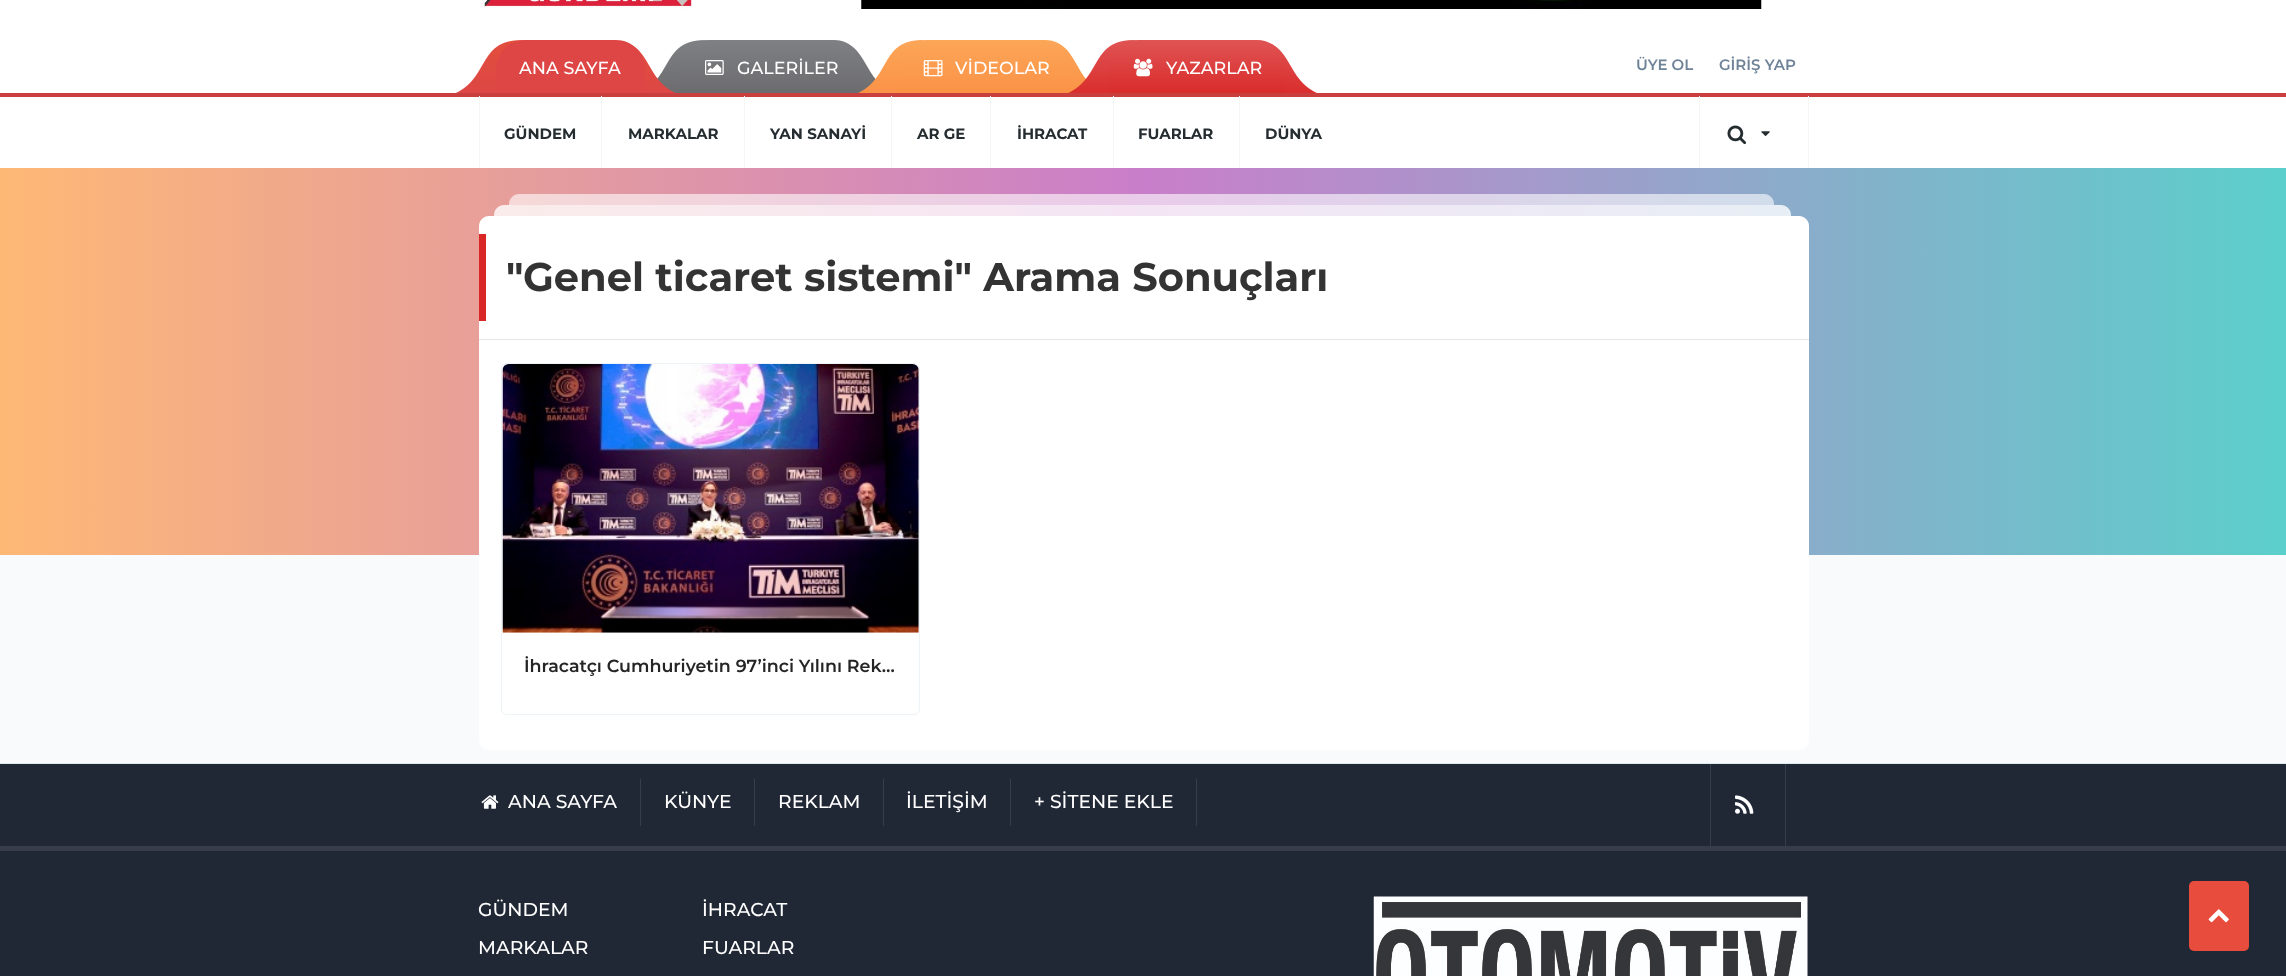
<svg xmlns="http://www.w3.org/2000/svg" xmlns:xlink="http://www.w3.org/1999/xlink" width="2286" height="976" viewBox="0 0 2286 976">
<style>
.cls-1{font:500 17.5px Montserrat;fill:#ffffff}
.cls-2{font:600 15px Montserrat;fill:#6e8398}
.cls-3{font:bold 15px Montserrat;fill:#252d31}
.cls-4{font:bold 40px Montserrat;fill:#333333}
.cls-5{font:600 17.5px Montserrat;fill:#252525}
.cls-6{font:500 18.75px Montserrat;fill:#ffffff}
</style>
<defs>
<linearGradient id="g1" gradientUnits="userSpaceOnUse" x1="771" y1="40" x2="771" y2="93"><stop offset="0" stop-color="#7f8083"/><stop offset="1" stop-color="#6c6c6f"/></linearGradient>
<linearGradient id="g2" gradientUnits="userSpaceOnUse" x1="986" y1="40" x2="986" y2="93"><stop offset="0" stop-color="#fca658"/><stop offset="1" stop-color="#fb9246"/></linearGradient>
<linearGradient id="g3" gradientUnits="userSpaceOnUse" x1="1198" y1="40" x2="1198" y2="93"><stop offset="0" stop-color="#e05454"/><stop offset="1" stop-color="#d92c2b"/></linearGradient>
<linearGradient id="g4" gradientUnits="userSpaceOnUse" x1="0" y1="180" x2="2286" y2="180"><stop offset="0" stop-color="#feb875"/><stop offset="0.5" stop-color="#c97eca"/><stop offset="1" stop-color="#5bcfcb"/></linearGradient>
<linearGradient id="g5" gradientUnits="userSpaceOnUse" x1="0" y1="368" x2="2286" y2="367"><stop offset="0" stop-color="#feb875"/><stop offset="0.5" stop-color="#c97eca"/><stop offset="1" stop-color="#5bcfcb"/></linearGradient>
</defs>
<rect width="100%" height="100%" fill="#f8fafc"/>
<rect fill="#ffffff" x="0" y="0" width="2286" height="93"/>
<image xlink:href="image0.png" x="483" y="0" width="210" height="9"/>
<image xlink:href="image1.png" x="861" y="0" width="901" height="9"/>
<image xlink:href="image2.png" x="456" y="40" width="68" height="53"/>
<image xlink:href="image4.png" x="657" y="40" width="51" height="53"/>
<image xlink:href="image3.png" x="618" y="40" width="57" height="53"/>
<path fill="#de4645" d="M525 40H616C632 40 645 53 645 69V93H496V69C496 53 509 40 525 40Z"/>
<image xlink:href="image6.png" x="835" y="40" width="41" height="51"/>
<path fill="url(#g1)" d="M709 40H834C850 40 863 53 863 69V93H680V69C680 53 693 40 709 40Z"/>
<image xlink:href="image5.png" x="705" y="60" width="19" height="15"/>
<image xlink:href="image7.png" x="858" y="40" width="67" height="53"/>
<image xlink:href="image9.png" x="1046" y="40" width="40" height="50"/>
<path fill="url(#g2)" d="M927 40H1045C1061 40 1074 53 1074 69V93H898V69C898 53 911 40 927 40Z"/>
<image xlink:href="image8.png" x="923" y="60" width="20" height="17"/>
<image xlink:href="image10.png" x="1068" y="40" width="68" height="53"/>
<image xlink:href="image12.png" x="1259" y="40" width="58" height="53"/>
<path fill="url(#g3)" d="M1138 40H1257C1273 40 1286 53 1286 69V93H1109V69C1109 53 1122 40 1138 40Z"/>
<image xlink:href="image11.png" x="1133" y="58" width="20" height="19"/>
<rect fill="#ffffff" x="0" y="97" width="2286" height="71"/>
<rect fill="#c83f3e" x="0" y="93" width="2286" height="4"/>
<rect fill="#f5f5f5" x="1808" y="96" width="1" height="72"/>
<rect fill="#f5f5f5" x="479" y="96" width="1" height="72"/>
<rect fill="#f5f5f5" x="601" y="96" width="1" height="72"/>
<rect fill="#f5f5f5" x="744" y="96" width="1" height="72"/>
<rect fill="#f5f5f5" x="891" y="96" width="1" height="72"/>
<rect fill="#f5f5f5" x="990" y="96" width="1" height="72"/>
<rect fill="#f5f5f5" x="1113" y="96" width="1" height="72"/>
<rect fill="#f5f5f5" x="1239" y="96" width="1" height="72"/>
<rect fill="#f5f5f5" x="1699" y="96" width="1" height="72"/>
<image xlink:href="image13.png" x="1727" y="125" width="20" height="20"/>
<image xlink:href="image14.png" x="1761" y="131" width="9" height="5"/>
<rect fill="url(#g4)" x="0" y="168" width="2286" height="12"/>
<rect fill="url(#g5)" x="0" y="180" width="2286" height="375"/>
<path fill="#ffffff" d="M489 216H1799C1804.5 216 1809 220.5 1809 226V340H479V226C479 220.5 483.5 216 489 216Z"/>
<rect fill="#e6e6e6" x="479" y="339" width="1330" height="1"/>
<path fill="#ffffff" fill-opacity="0.6" d="M519 194H1764C1769.5 194 1774 198.5 1774 204V205H509V204C509 198.5 513.5 194 519 194Z"/>
<path fill="#ffffff" fill-opacity="0.8" d="M504 205H1781C1786.5 205 1791 209.5 1791 215V216H494V215C494 209.5 498.5 205 504 205Z"/>
<rect fill="#d82726" x="479" y="234" width="7" height="87"/>
<path fill="#ffffff" d="M479 340H1809V740C1809 745.5 1804.5 750 1799 750H489C483.5 750 479 745.5 479 740Z"/>
<rect fill="none" stroke="#eef3f7" x="501.5" y="363.5" width="418" height="351" rx="5.5"/>
<image xlink:href="image15.png" x="502" y="364" width="417" height="269"/>
<rect fill="#202735" x="0" y="764" width="2286" height="82"/>
<rect fill="#dfe9ee" x="0" y="763" width="2286" height="1"/>
<rect fill="#373d4a" x="0" y="846" width="2286" height="5"/>
<rect fill="#373d4a" x="640" y="779" width="1" height="47"/>
<image xlink:href="image16.png" x="481" y="795" width="18" height="14"/>
<rect fill="#373d4a" x="754" y="779" width="1" height="47"/>
<rect fill="#373d4a" x="883" y="779" width="1" height="47"/>
<rect fill="#373d4a" x="1010" y="779" width="1" height="47"/>
<rect fill="#373d4a" x="1196" y="779" width="1" height="47"/>
<rect fill="#373d4a" x="1710" y="764" width="1" height="82"/>
<rect fill="#373d4a" x="1785" y="764" width="1" height="82"/>
<image xlink:href="image17.png" x="1735" y="795" width="19" height="19"/>
<rect fill="#202735" x="0" y="851" width="2286" height="125"/>
<image xlink:href="image18.png" x="1373" y="896" width="435" height="80"/>
<rect fill="#e74c3c" x="2189" y="881" width="60" height="70" rx="5"/>
<image xlink:href="image19.png" x="2208" y="909" width="21" height="14"/>
<text class="cls-1" x="519" y="74">ANA SAYFA</text>
<text class="cls-1" x="737" y="74">GALERİLER</text>
<text class="cls-1" x="955" y="74">VİDEOLAR</text>
<text class="cls-1" x="1166" y="74">YAZARLAR</text>
<text class="cls-2" x="1636" y="70">ÜYE OL</text>
<text class="cls-2" x="1719" y="70">GİRİŞ YAP</text>
<text class="cls-3" x="504" y="139">GÜNDEM</text>
<text class="cls-3" x="628" y="139">MARKALAR</text>
<text class="cls-3" x="770" y="139">YAN SANAYİ</text>
<text class="cls-3" x="917" y="139">AR GE</text>
<text class="cls-3" x="1017" y="139">İHRACAT</text>
<text class="cls-3" x="1138" y="139">FUARLAR</text>
<text class="cls-3" x="1265" y="139">DÜNYA</text>
<text class="cls-4" x="506" y="291">"Genel ticaret sistemi" Arama Sonuçları</text>
<text class="cls-5" x="524" y="672">İhracatçı Cumhuriyetin 97’inci Yılını Rek…</text>
<text class="cls-6" x="508" y="808">ANA SAYFA</text>
<text class="cls-6" x="664" y="808">KÜNYE</text>
<text class="cls-6" x="778" y="808">REKLAM</text>
<text class="cls-6" x="906" y="808">İLETİŞİM</text>
<text class="cls-6" x="1034" y="808">+ SİTENE EKLE</text>
<text class="cls-6" x="478" y="916">GÜNDEM</text>
<text class="cls-6" x="478" y="954">MARKALAR</text>
<text class="cls-6" x="702" y="916">İHRACAT</text>
<text class="cls-6" x="702" y="954">FUARLAR</text>
</svg>
